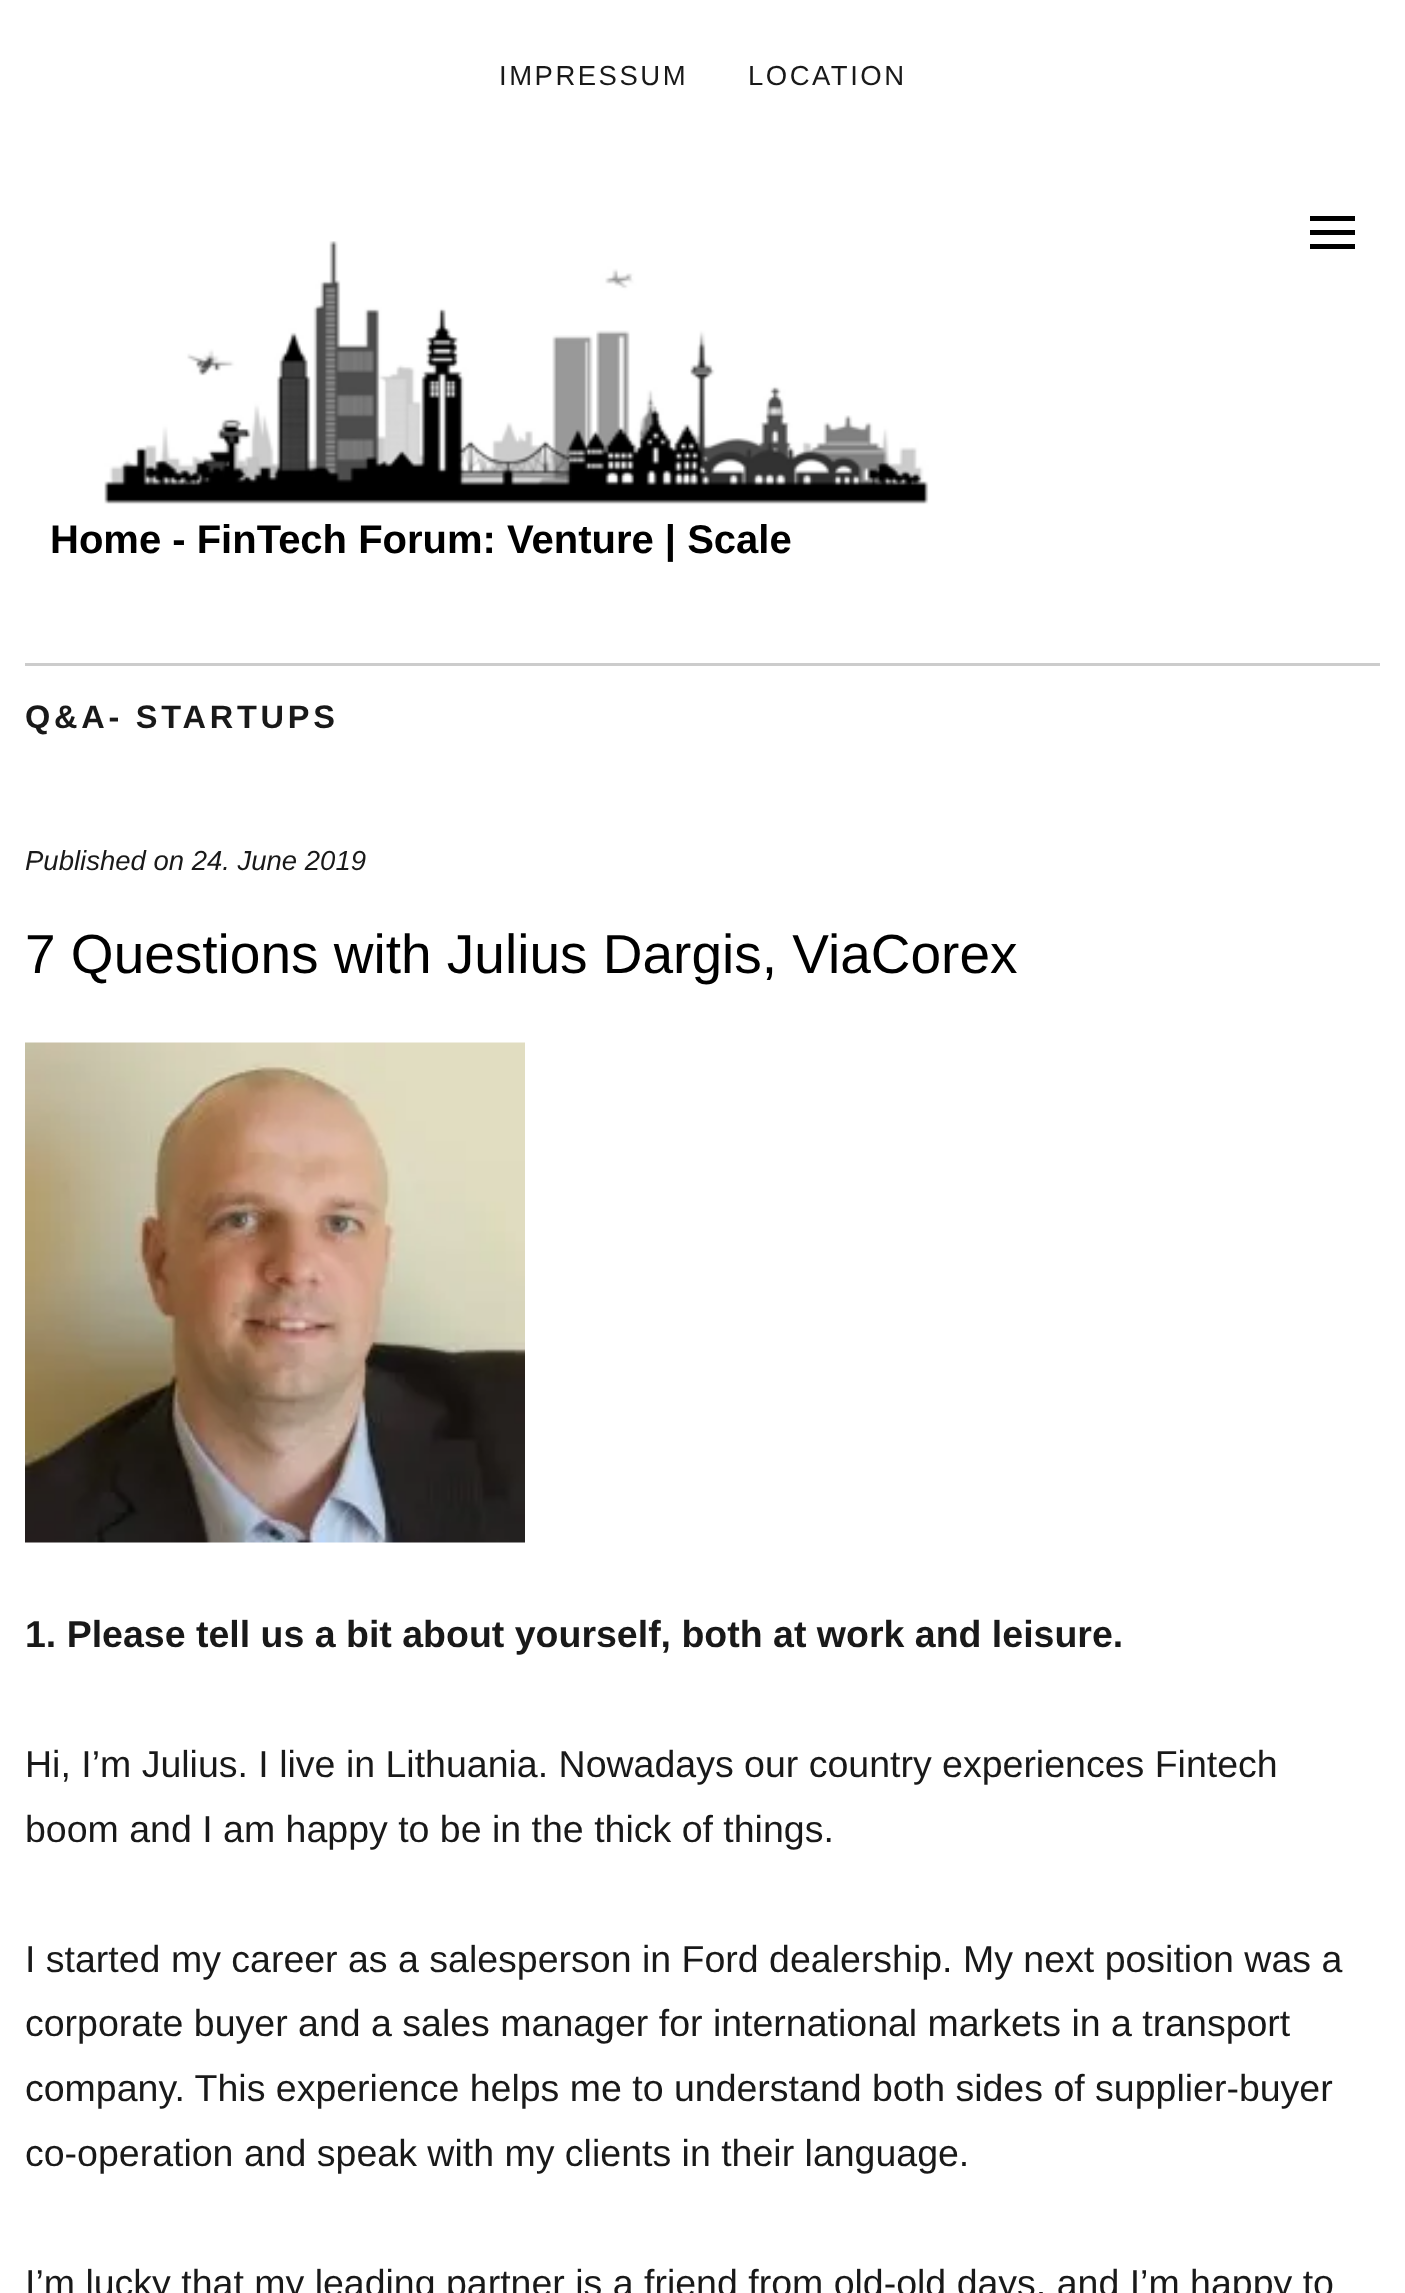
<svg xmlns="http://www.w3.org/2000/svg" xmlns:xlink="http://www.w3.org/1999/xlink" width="1405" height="2293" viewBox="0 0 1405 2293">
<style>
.cls-1{font:27.5px Liberation Sans;letter-spacing:2.5px;fill:#191919}
.cls-2{font:bold 40px Liberation Sans;fill:#000000}
.cls-3{font:bold 32.5px Liberation Sans;letter-spacing:3.75px;fill:#191919}
.cls-4{font:italic 27.5px Liberation Sans;fill:#191919}
.cls-5{font:55px Liberation Sans;fill:#000000}
.cls-6{font:bold 37.5px Liberation Sans;fill:#191919}
.cls-7{font:37.5px Liberation Sans;fill:#191919}
</style>
<rect width="100%" height="100%" fill="#ffffff"/>
<path fill="#000000" d="M1310 249V244H1355V249ZM1310 216H1355V221H1310ZM1310 235V230H1355V235Z"/>
<image xlink:href="image0.png" x="104" y="241" width="825" height="264"/>
<rect fill="#cccccc" x="25" y="663" width="1355" height="3"/>
<image xlink:href="image1.png" x="25" y="1042" width="500" height="501"/>
<text class="cls-1" x="499" y="85">IMPRESSUM</text>
<text class="cls-1" x="748" y="85">LOCATION</text>
<text class="cls-2" x="50" y="553">Home - FinTech Forum: Venture | Scale</text>
<text class="cls-3" x="25" y="728">Q&amp;A- STARTUPS</text>
<text class="cls-4" x="25" y="870">Published on 24. June 2019</text>
<text class="cls-5" x="25" y="973">7 Questions with Julius Dargis, ViaCorex</text>
<text class="cls-6" x="25" y="1647">1. Please tell us a bit about yourself, both at work and leisure.</text>
<text class="cls-7"><tspan x="25" y="1777">Hi, I’m Julius. I live in Lithuania. Nowadays our country experiences Fintech</tspan><tspan x="25" y="1842">boom and I am happy to be in the thick of things.</tspan></text>
<text class="cls-7"><tspan x="25" y="1972">I started my career as a salesperson in Ford dealership. My next position was a</tspan><tspan x="25" y="2036">corporate buyer and a sales manager for international markets in a transport</tspan><tspan x="25" y="2101">company. This experience helps me to understand both sides of supplier-buyer</tspan><tspan x="25" y="2166">co-operation and speak with my clients in their language.</tspan></text>
<text class="cls-7" x="25" y="2296">I’m lucky that my leading partner is a friend from old-old days, and I’m happy to</text>
</svg>
